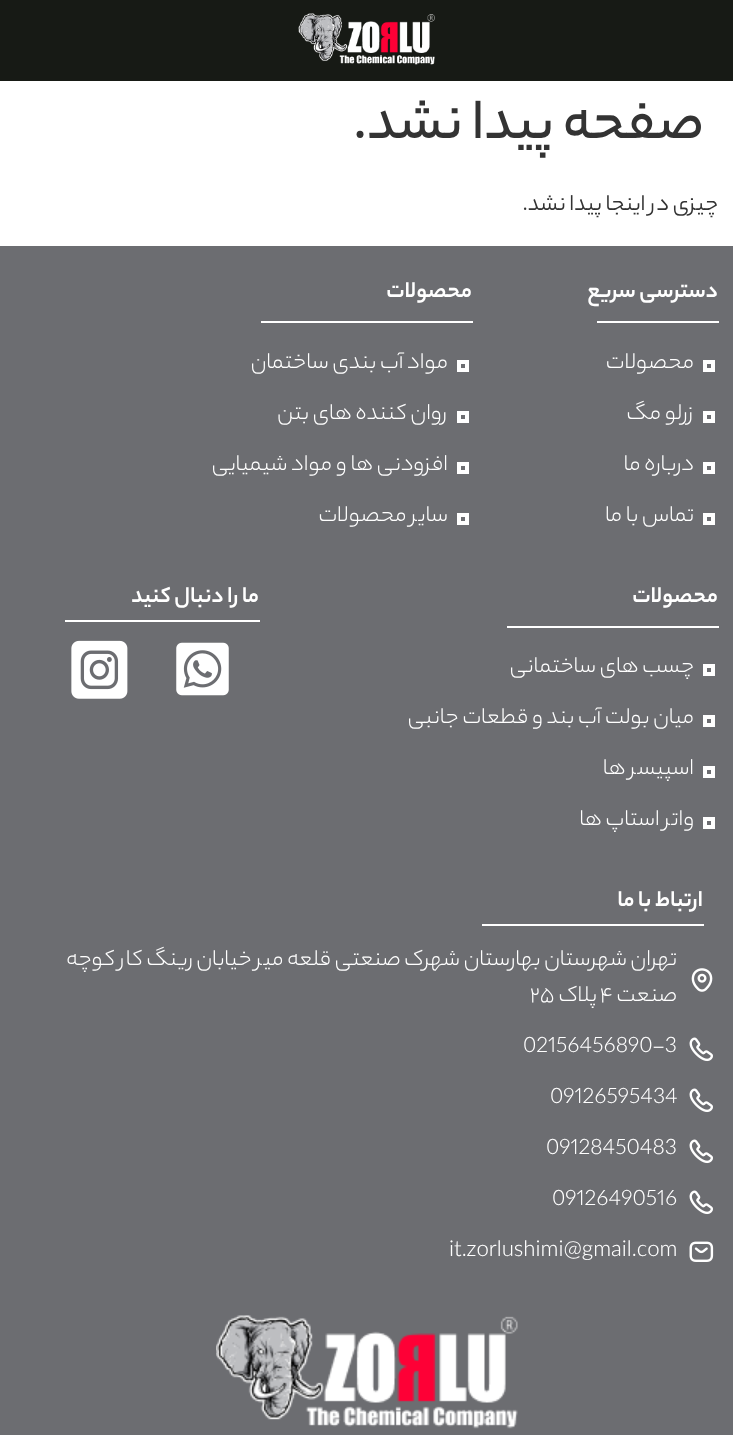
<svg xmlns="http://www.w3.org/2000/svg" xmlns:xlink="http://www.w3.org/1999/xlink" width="733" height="1435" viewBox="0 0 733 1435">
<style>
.cls-1{font:500 60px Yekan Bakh;direction:rtl;fill:#333333}
.cls-2{font:24px Yekan Bakh;direction:rtl;fill:#333333}
.cls-3{font:bold 24px Yekan Bakh;direction:rtl;fill:#ffffff}
.cls-4{font:300 24px Yekan Bakh;direction:rtl;fill:#ffffff}
.cls-5{font:300 24px Yekan Bakh;fill:#ffffff}
</style>
<rect width="100%" height="100%" fill="#ffffff"/>
<rect fill="#171a15" x="0" y="0" width="733" height="81"/>
<image xlink:href="image0.png" x="298" y="13" width="137" height="52"/>
<rect fill="#6c6d71" x="0" y="246" width="733" height="1189"/>
<rect fill="#ffffff" x="597" y="321" width="122" height="2"/>
<rect fill="none" stroke="#ffffff" stroke-width="4" x="705" y="362" width="8" height="8"/>
<rect fill="none" stroke="#ffffff" stroke-width="4" x="705" y="413" width="8" height="8"/>
<rect fill="none" stroke="#ffffff" stroke-width="4" x="705" y="464" width="8" height="8"/>
<rect fill="none" stroke="#ffffff" stroke-width="4" x="705" y="515" width="8" height="8"/>
<rect fill="#ffffff" x="261" y="321" width="212" height="2"/>
<rect fill="none" stroke="#ffffff" stroke-width="4" x="459" y="362" width="8" height="8"/>
<rect fill="none" stroke="#ffffff" stroke-width="4" x="459" y="413" width="8" height="8"/>
<rect fill="none" stroke="#ffffff" stroke-width="4" x="459" y="464" width="8" height="8"/>
<rect fill="none" stroke="#ffffff" stroke-width="4" x="459" y="515" width="8" height="8"/>
<rect fill="#ffffff" x="507" y="626" width="212" height="2"/>
<rect fill="none" stroke="#ffffff" stroke-width="4" x="705" y="666" width="8" height="8"/>
<rect fill="none" stroke="#ffffff" stroke-width="4" x="705" y="717" width="8" height="8"/>
<rect fill="none" stroke="#ffffff" stroke-width="4" x="705" y="768" width="8" height="8"/>
<rect fill="none" stroke="#ffffff" stroke-width="4" x="705" y="819" width="8" height="8"/>
<rect fill="#ffffff" x="65" y="620" width="195" height="2"/>
<image xlink:href="image1.png" x="176" y="642" width="53" height="54"/>
<image xlink:href="image2.png" x="71" y="640" width="57" height="59"/>
<rect fill="#ffffff" x="482" y="924" width="222" height="2"/>
<image xlink:href="image3.png" x="691" y="968" width="22" height="24"/>
<image xlink:href="image4.png" x="689" y="1037" width="24" height="25"/>
<image xlink:href="image4.png" x="689" y="1088" width="24" height="25"/>
<image xlink:href="image4.png" x="689" y="1139" width="24" height="25"/>
<image xlink:href="image4.png" x="689" y="1190" width="24" height="25"/>
<image xlink:href="image5.png" x="689" y="1241" width="25" height="21"/>
<image xlink:href="image6.png" x="216" y="1315" width="302" height="114"/>
<text class="cls-1" x="704" y="138">صفحه پیدا نشد.</text>
<text class="cls-2" x="718" y="210">چیزی در اینجا پیدا نشد.</text>
<text class="cls-3" x="718" y="297">دسترسی سریع</text>
<text class="cls-4" x="694" y="368">محصولات</text>
<text class="cls-4" x="694" y="419">زرلو مگ</text>
<text class="cls-4" x="694" y="470">درباره ما</text>
<text class="cls-4" x="694" y="521">تماس با ما</text>
<text class="cls-3" x="472" y="297">محصولات</text>
<text class="cls-4" x="448" y="368">مواد آب بندی ساختمان</text>
<text class="cls-4" x="448" y="419">روان کننده های بتن</text>
<text class="cls-4" x="448" y="470">افزودنی ها و مواد شیمیایی</text>
<text class="cls-4" x="448" y="521">سایر محصولات</text>
<text class="cls-3" x="718" y="602">محصولات</text>
<text class="cls-4" x="694" y="672">چسب های ساختمانی</text>
<text class="cls-4" x="694" y="723">میان بولت آب بند و قطعات جانبی</text>
<text class="cls-4" x="694" y="774">اسپیسر ها</text>
<text class="cls-4" x="694" y="825">واتر استاپ ها</text>
<text class="cls-3" x="259" y="602">ما را دنبال کنید</text>
<text class="cls-3" x="703" y="906">ارتباط با ما</text>
<text class="cls-4"><tspan x="677" y="965">تهران شهرستان بهارستان شهرک صنعتی قلعه میر خیابان رینگ کار کوچه</tspan><tspan x="677" y="1001">صنعت</tspan></text>
<text class="cls-5" x="600" y="1001">۴</text>
<text class="cls-4" x="597" y="1001">پلاک</text>
<text class="cls-5" x="530" y="1001">۲۵</text>
<text class="cls-5" x="523" y="1052">02156456890-3</text>
<text class="cls-5" x="550" y="1103">09126595434</text>
<text class="cls-5" x="546" y="1154">09128450483</text>
<text class="cls-5" x="552" y="1205">09126490516</text>
<text class="cls-5" x="449" y="1256">it.zorlushimi@gmail.com</text>
</svg>
